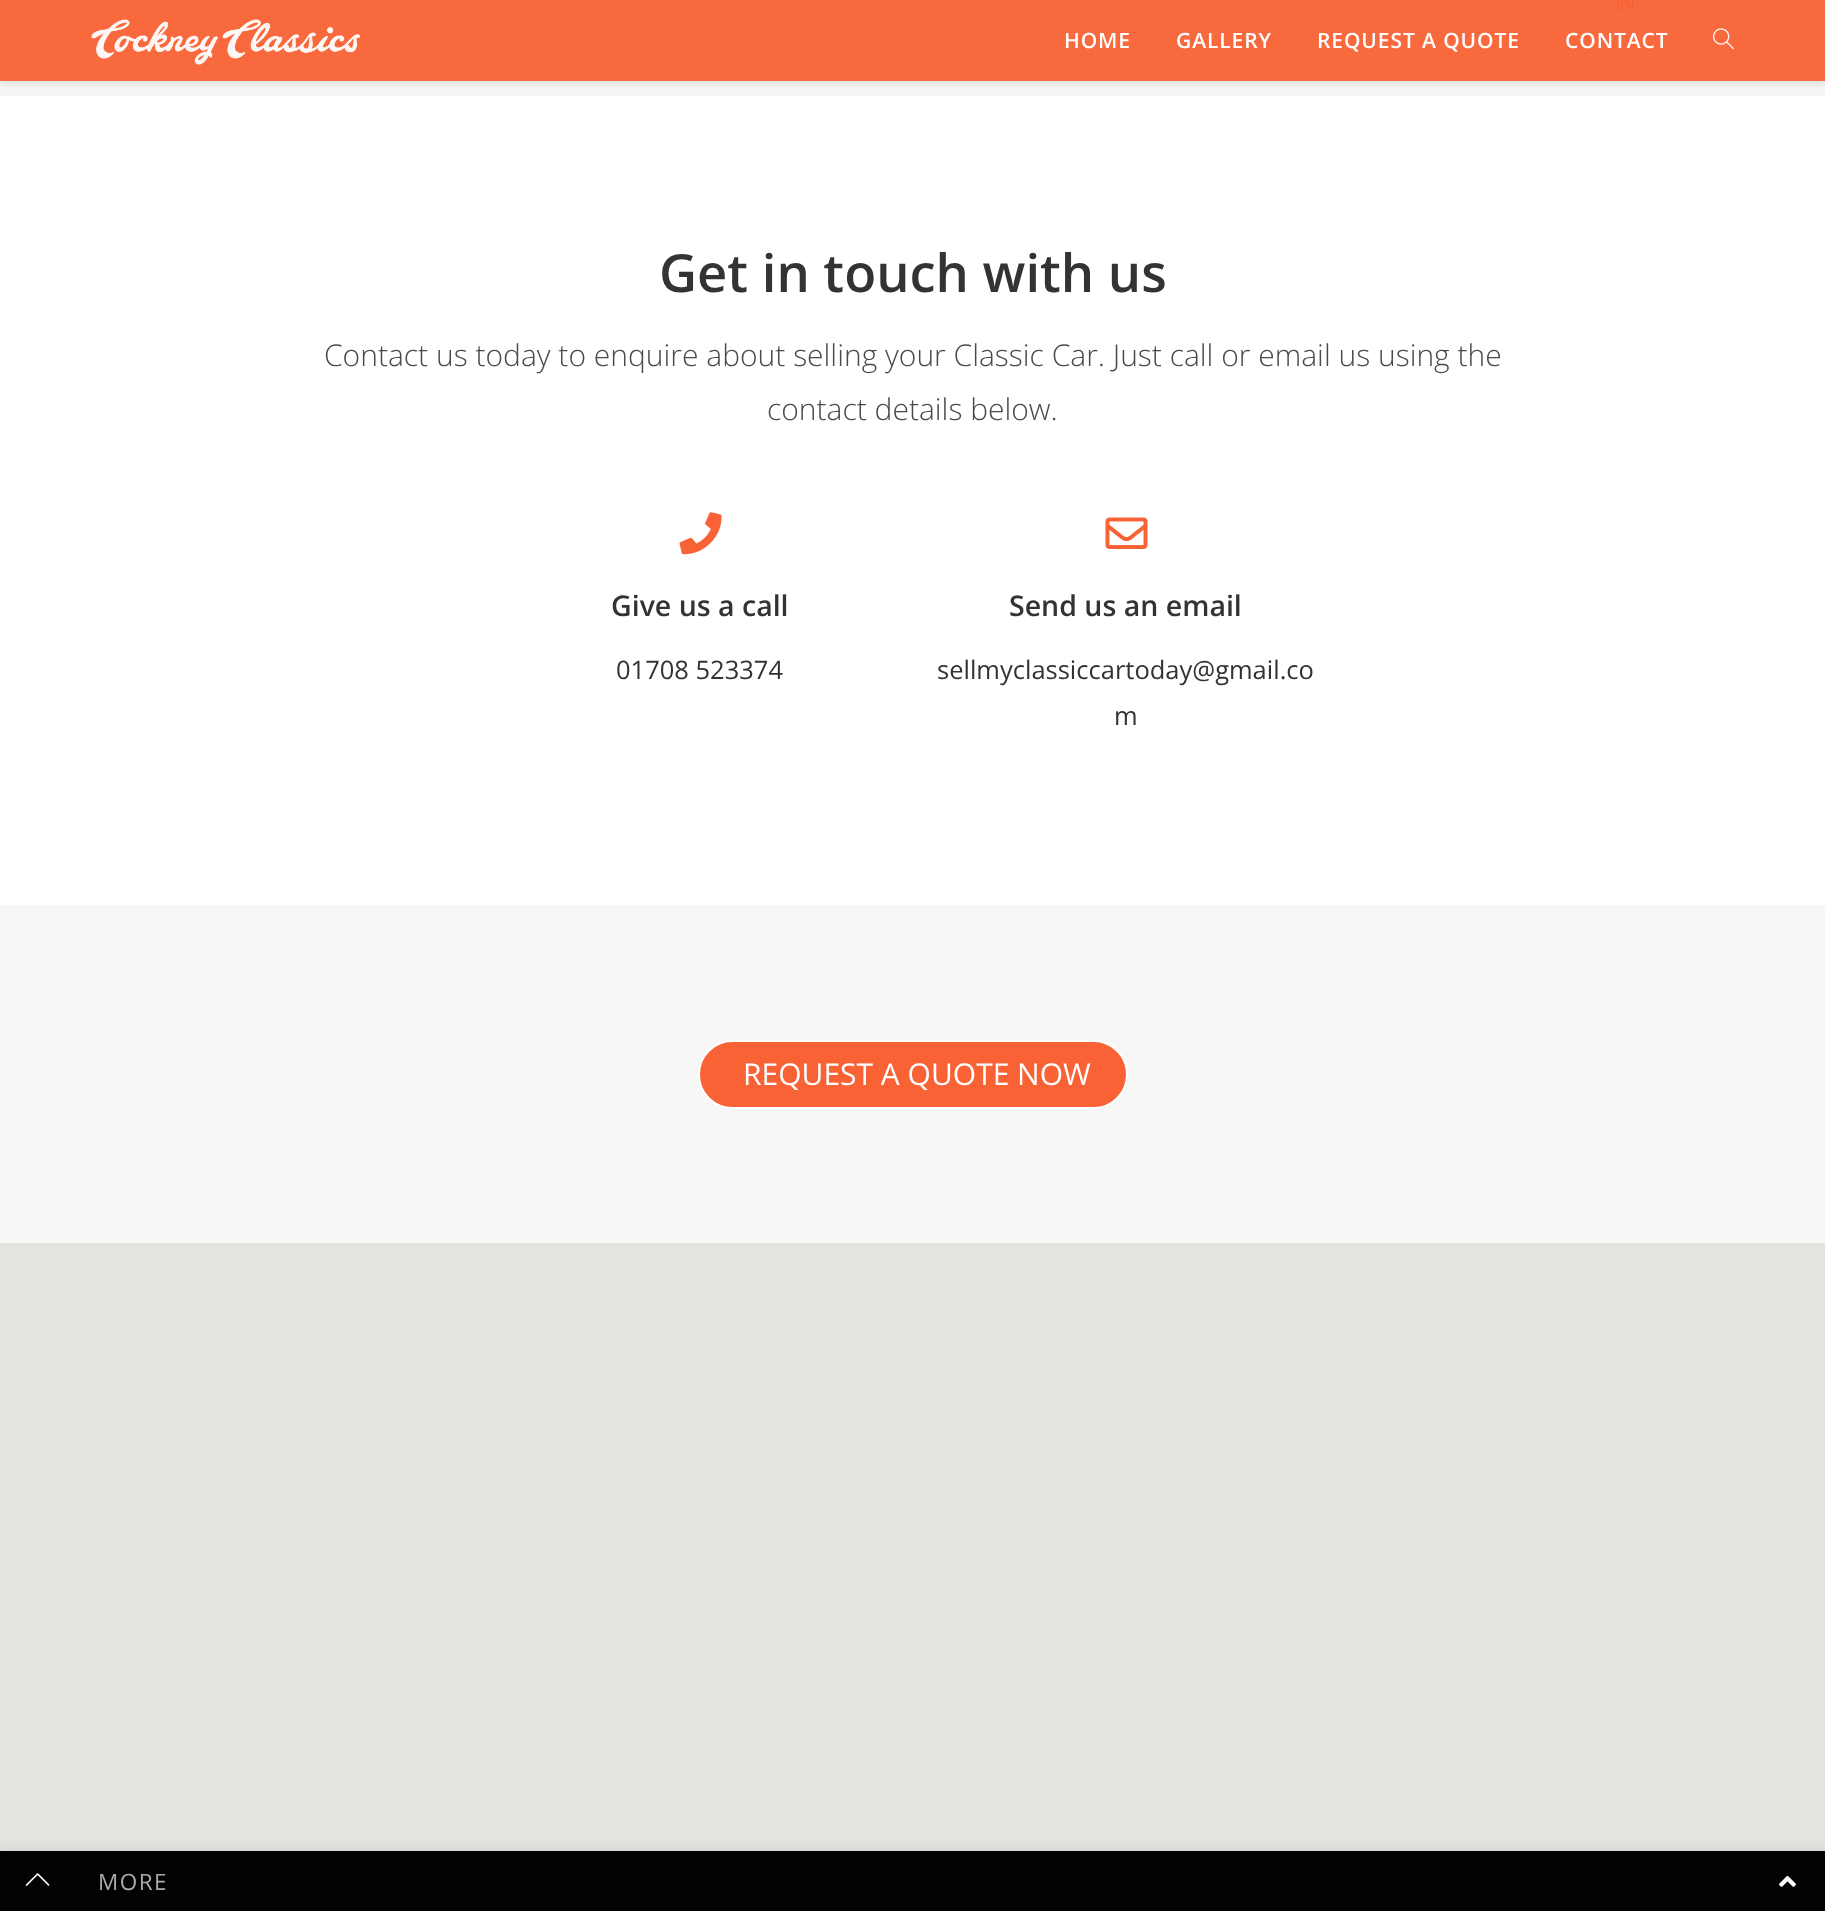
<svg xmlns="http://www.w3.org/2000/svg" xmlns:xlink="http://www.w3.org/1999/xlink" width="1825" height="1911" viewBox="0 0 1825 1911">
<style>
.cls-1{font:600 21px Open Sans;letter-spacing:0.9px;fill:#ffffff}
.cls-2{font:600 52.5px Open Sans;fill:#333333}
.cls-3{font:300 30px Open Sans;fill:#4a4a4a}
.cls-4{font:600 28.5px Open Sans;fill:#333333}
.cls-5{font:25.5px Open Sans;fill:#333333}
.cls-6{font:30px Open Sans;fill:#ffffff}
.cls-7{font:22.5px Open Sans;letter-spacing:1.5px;fill:#aaaaaa}
</style>
<defs>
<clipPath id="clip1"><rect x="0" y="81" width="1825" height="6"/></clipPath>
</defs>
<rect width="100%" height="100%" fill="#ffffff"/>
<rect fill="#f5f5f5" x="0" y="81" width="1825" height="15"/>
<rect fill="#f9693e" x="0" y="0" width="1825" height="81"/>
<image xlink:href="image2.png" x="1617" y="0" width="17" height="9"/>
<g clip-path="url(#clip1)">
<rect fill="#0c0c0c" fill-opacity="0.1" filter="blur(4px)" x="0" y="3" width="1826" height="81"/>
</g>
<image xlink:href="image0.png" x="91" y="19" width="269" height="46"/>
<image xlink:href="image1.png" x="1712" y="28" width="22" height="22"/>
<image xlink:href="image3.png" x="679" y="512" width="43" height="43"/>
<image xlink:href="image4.png" x="1105" y="517" width="43" height="32"/>
<rect fill="#f7f7f7" x="0" y="905" width="1825" height="338"/>
<rect fill="#f96234" stroke="#ffffff" stroke-width="2" x="699" y="1041" width="428" height="67" rx="33.5"/>
<rect fill="#e5e3df" x="0" y="1243" width="1825" height="608"/>
<rect fill="#020202" fill-opacity="0.1" filter="blur(6px)" x="0" y="1851" width="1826" height="60"/>
<rect fill="#020202" x="0" y="1851" width="1825" height="60"/>
<image xlink:href="image5.png" x="25" y="1873" width="25" height="13"/>
<image xlink:href="image6.png" x="1779" y="1876" width="17" height="11"/>
<text class="cls-1" x="1064" y="48">HOME</text>
<text class="cls-1" x="1176" y="48">GALLERY</text>
<text class="cls-1" x="1317" y="48">REQUEST A QUOTE</text>
<text class="cls-1" x="1565" y="48">CONTACT</text>
<text class="cls-2" x="659" y="292">Get in touch with us</text>
<text class="cls-3" x="324" y="366">Contact us today to enquire about selling your Classic Car. Just call or email us using the</text>
<text class="cls-3" x="767" y="420">contact details below.</text>
<text class="cls-4" x="611" y="616">Give us a call</text>
<text class="cls-5" x="616" y="679">01708 523374</text>
<text class="cls-4" x="1009" y="616">Send us an email</text>
<text class="cls-5" x="937" y="679">sellmyclassiccartoday@gmail.co</text>
<text class="cls-5" x="1114" y="725">m</text>
<text class="cls-6" x="743" y="1085">REQUEST A QUOTE NOW</text>
<text class="cls-7" x="98" y="1890">MORE</text>
</svg>
